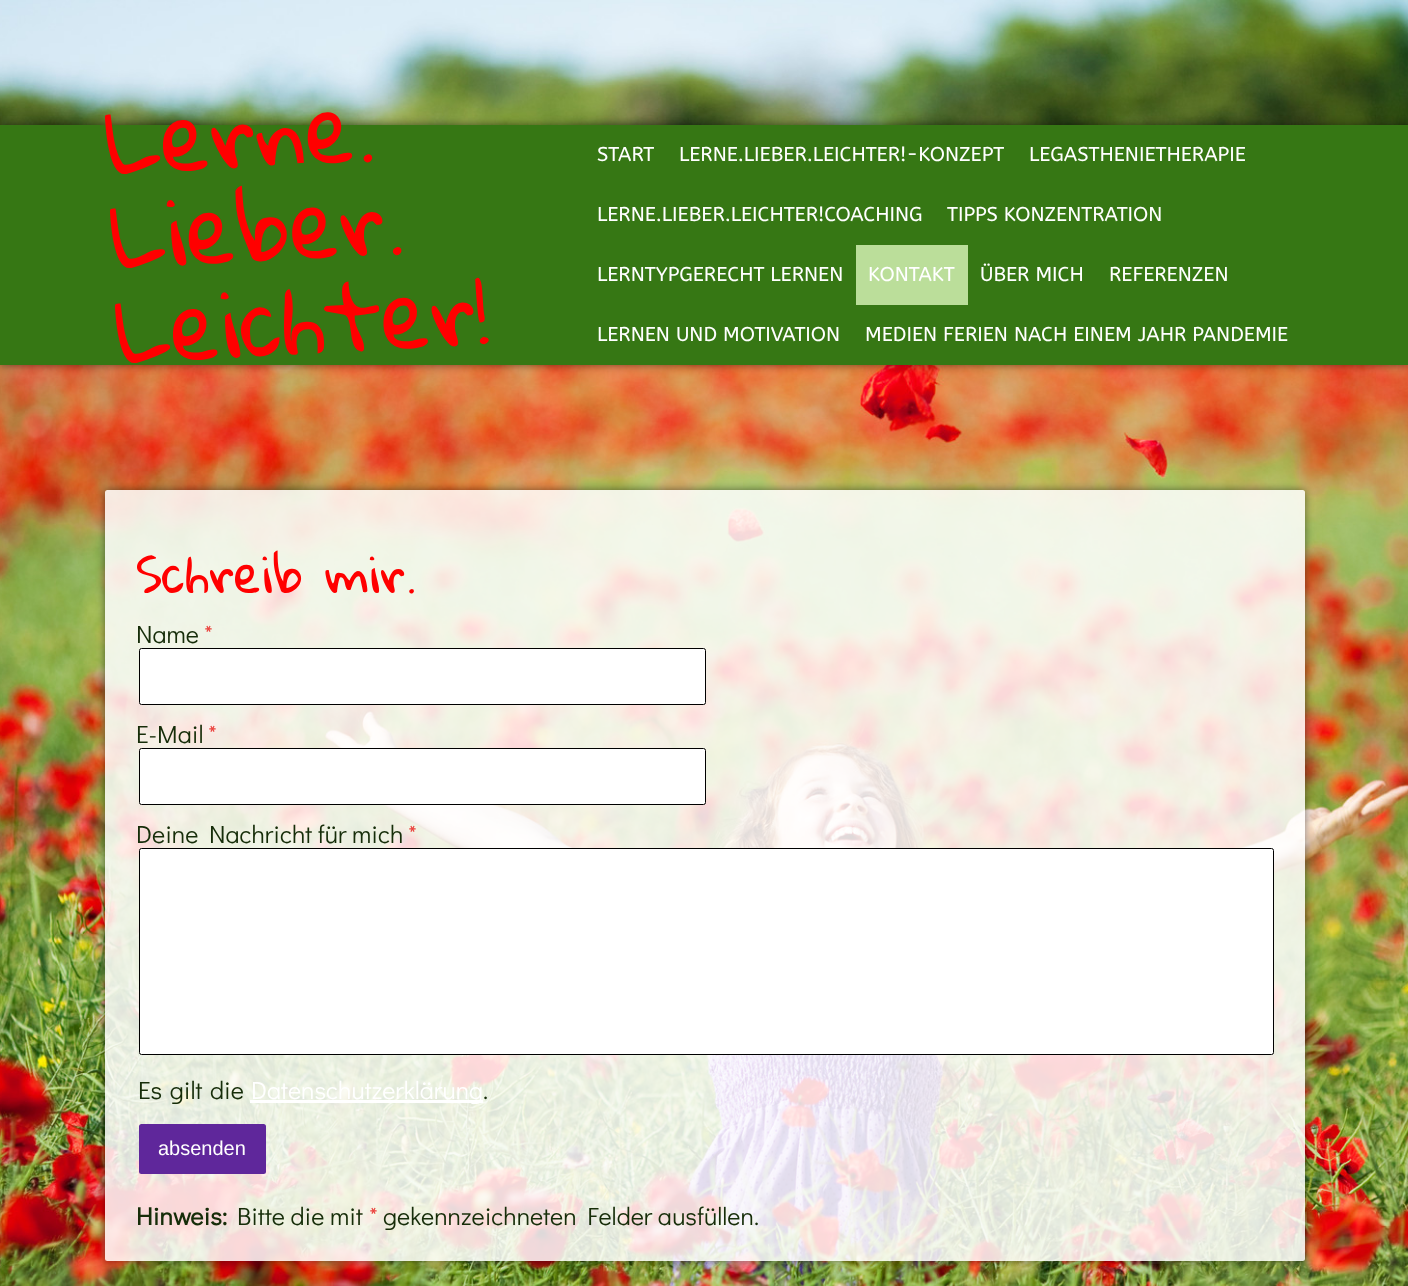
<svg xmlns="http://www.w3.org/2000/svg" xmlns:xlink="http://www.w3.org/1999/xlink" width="1408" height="1286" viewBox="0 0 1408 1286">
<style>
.cls-1{font:90px Gloria Hallelujah;fill:#ff0000}
.cls-2{font:20px ABeeZee;fill:#ffffff}
.cls-3{font:50px Gloria Hallelujah;fill:#ff0000}
.cls-4{font:25px Didact Gothic;fill:#162d09}
.cls-5{font:25px Didact Gothic;fill:#eb433e}
.cls-6{font:25px Didact Gothic;fill:#ffffff}
.cls-7{font:20px Liberation Sans;fill:#ffffff}
.cls-8{font:bold 25px Didact Gothic;fill:#162d09}
</style>
<defs>
<clipPath id="clip1"><path d="M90 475H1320V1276H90ZM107.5 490H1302.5C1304 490 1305 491 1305 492.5V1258.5C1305 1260 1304 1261 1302.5 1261H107.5C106 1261 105 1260 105 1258.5V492.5C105 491 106 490 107.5 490Z" clip-rule="evenodd"/></clipPath>
</defs>
<rect width="100%" height="100%" fill="#ffffff"/>
<image xlink:href="image0.png" x="0" y="0" width="1408" height="1286"/>
<rect fill="#000000" fill-opacity="0.5" filter="blur(4.5px)" x="0" y="125" width="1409" height="240"/>
<rect fill="#367714" x="0" y="125" width="1408" height="240"/>
<rect fill="#bbde9a" x="856" y="245" width="112" height="60"/>
<g clip-path="url(#clip1)">
<rect fill="#000000" fill-opacity="0.5" filter="blur(4.5px)" x="105" y="490" width="1200" height="771" rx="2.5"/>
</g>
<rect fill="#ffffff" fill-opacity="0.85" x="105" y="490" width="1200" height="771" rx="2.5"/>
<rect fill="#ffffff" stroke="#000000" x="139.5" y="648.5" width="566" height="56" rx="2"/>
<rect fill="#ffffff" stroke="#000000" x="139.5" y="748.5" width="566" height="56" rx="2"/>
<rect fill="#ffffff" stroke="#000000" x="139.5" y="848.5" width="1134" height="206" rx="2"/>
<rect fill="#ffffff" x="250" y="1100" width="233" height="3"/>
<rect fill="#5f279b" x="139" y="1124" width="127" height="50" rx="2.5"/>
<text class="cls-1" x="108" y="175" transform="rotate(-3 108 175)">Lerne.</text>
<text class="cls-1" x="113" y="269" transform="rotate(-3 113 269)">Lieber.</text>
<text class="cls-1" x="118" y="364" transform="rotate(-3 118 364)">Leichter!</text>
<text class="cls-2" x="597" y="161">START</text>
<text class="cls-2" x="679" y="161">LERNE.LIEBER.LEICHTER!-KONZEPT</text>
<text class="cls-2" x="1029" y="161">LEGASTHENIETHERAPIE</text>
<text class="cls-2" x="597" y="221">LERNE.LIEBER.LEICHTER!COACHING</text>
<text class="cls-2" x="947" y="221">TIPPS KONZENTRATION</text>
<text class="cls-2" x="597" y="281">LERNTYPGERECHT LERNEN</text>
<text class="cls-2" x="868" y="281">KONTAKT</text>
<text class="cls-2" x="980" y="281">ÜBER MICH</text>
<text class="cls-2" x="1109" y="281">REFERENZEN</text>
<text class="cls-2" x="597" y="341">LERNEN UND MOTIVATION</text>
<text class="cls-2" x="865" y="341">MEDIEN FERIEN NACH EINEM JAHR PANDEMIE</text>
<text class="cls-3" x="136" y="593">Schreib mir.</text>
<text class="cls-4" x="136" y="643">Name</text>
<text class="cls-5" x="204" y="643">*</text>
<text class="cls-4" x="136" y="743">E-Mail</text>
<text class="cls-5" x="208" y="743">*</text>
<text class="cls-4" x="136" y="843">Deine Nachricht für mich</text>
<text class="cls-5" x="408" y="843">*</text>
<text class="cls-4" x="138" y="1099" word-spacing="2">Es gilt die</text>
<text class="cls-6" x="251" y="1099">Datenschutzerklärung</text>
<text class="cls-4" x="483" y="1099">.</text>
<text class="cls-7" x="158" y="1155">absenden</text>
<text class="cls-8" x="136" y="1225">Hinweis:</text>
<text class="cls-4" x="237" y="1225">Bitte die mit</text>
<text class="cls-5" x="369" y="1225">*</text>
<text class="cls-4" x="383" y="1225">gekennzeichneten Felder ausfüllen.</text>
</svg>
